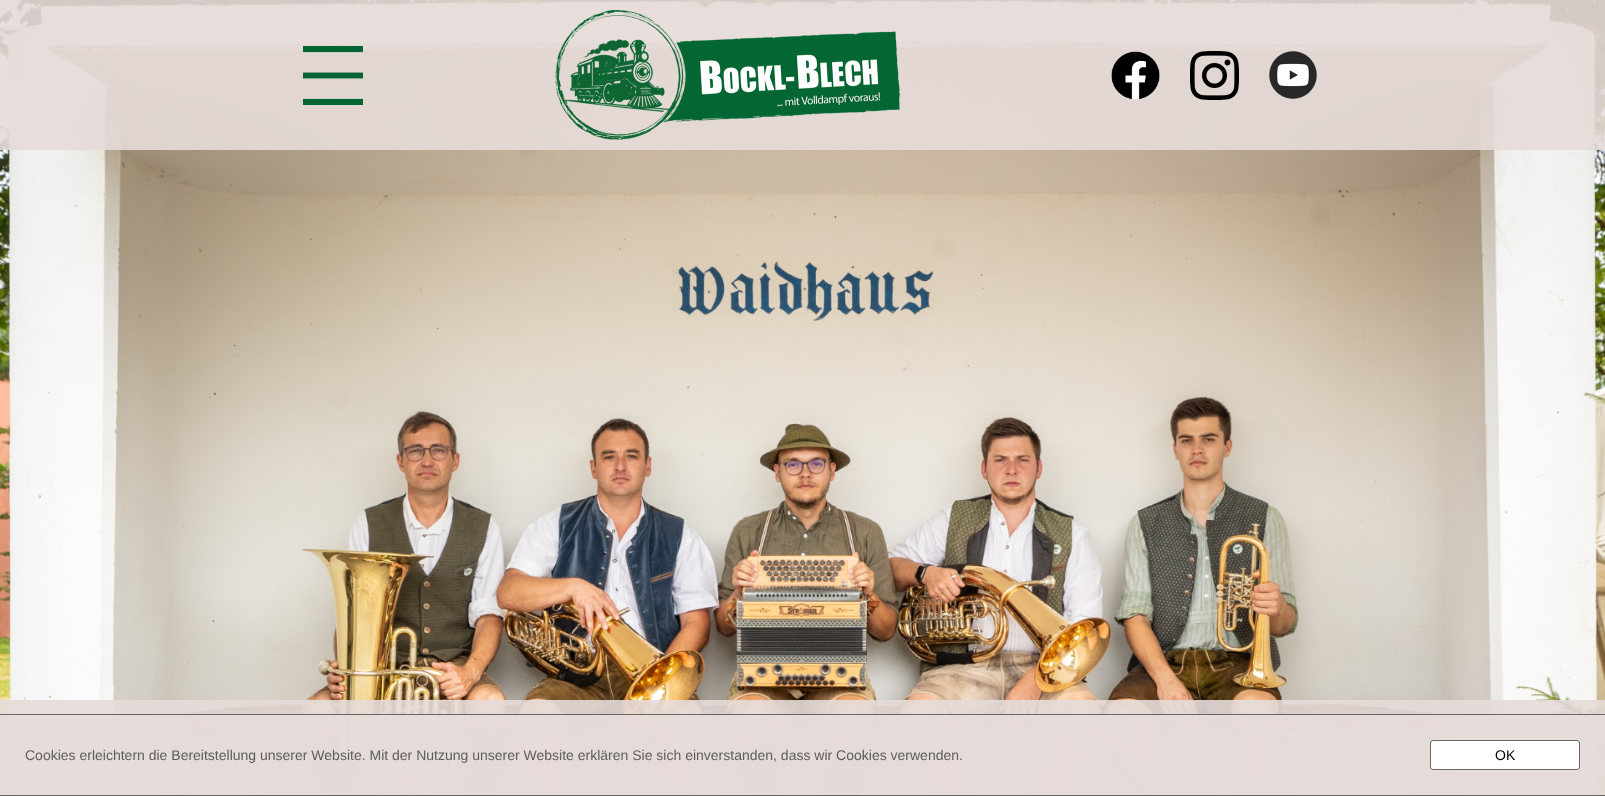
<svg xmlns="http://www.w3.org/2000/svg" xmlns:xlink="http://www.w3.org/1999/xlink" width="1605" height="796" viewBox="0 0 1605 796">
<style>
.cls-1{font:14px Liberation Sans;fill:#5e5e5e}
.cls-2{font:14px Liberation Sans;fill:#000000}
</style>
<rect width="100%" height="100%" fill="#ffffff"/>
<image xlink:href="image0.png" x="0" y="0" width="1605" height="795"/>
<rect fill="#e5dcd9" fill-opacity="0.9" x="0" y="0" width="1605" height="150"/>
<image xlink:href="image1.png" x="303" y="46" width="60" height="59"/>
<image xlink:href="image2.png" x="555" y="10" width="345" height="130"/>
<image xlink:href="image3.png" x="1111" y="51" width="49" height="49"/>
<image xlink:href="image4.png" x="1190" y="51" width="49" height="49"/>
<image xlink:href="image5.png" x="1269" y="51" width="48" height="48"/>
<rect fill="#e5dcd9" fill-opacity="0.9" x="0" y="700" width="1605" height="95"/>
<rect fill="#e5dcd9" fill-opacity="0.9" x="0" y="715" width="1605" height="80"/>
<rect fill="#666666" x="0" y="714" width="1605" height="1"/>
<rect fill="#666666" x="0" y="795" width="1605" height="1"/>
<rect fill="#ffffff" stroke="#666666" x="1430.5" y="740.5" width="149" height="29" rx="2.5"/>
<text class="cls-1" x="25" y="760">Cookies erleichtern die Bereitstellung unserer Website. Mit der Nutzung unserer Website erklären Sie sich einverstanden, dass wir Cookies verwenden.</text>
<text class="cls-2" x="1495" y="760">OK</text>
</svg>
